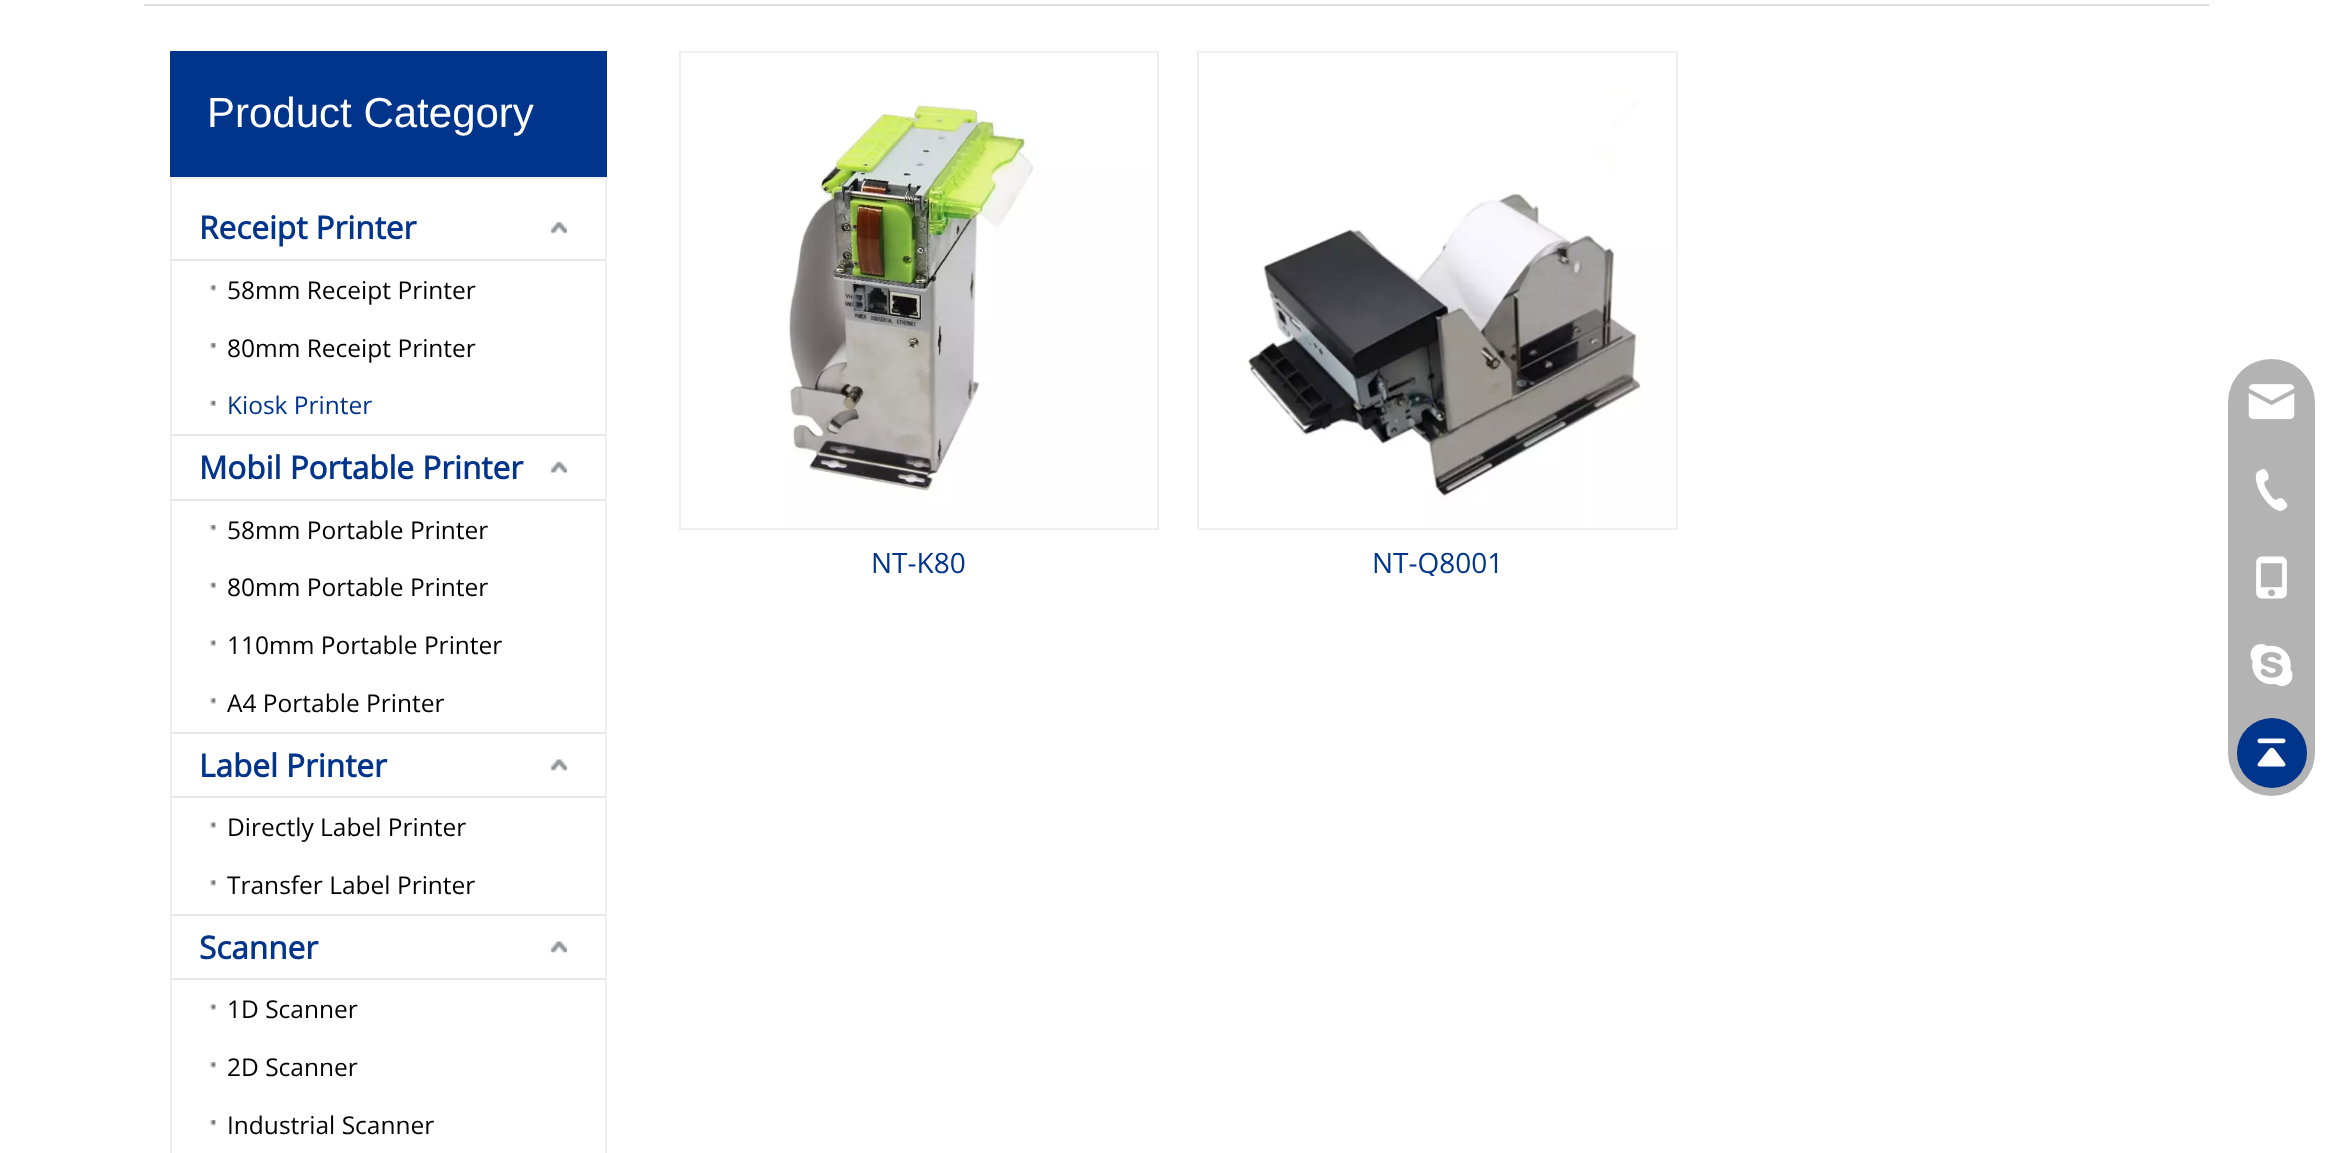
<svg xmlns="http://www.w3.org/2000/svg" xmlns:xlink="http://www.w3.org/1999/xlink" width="2350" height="1153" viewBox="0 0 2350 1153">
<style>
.cls-1{font:42px Liberation Sans;fill:#ffffff}
.cls-2{font:bold 31.5px Open Sans;fill:#01348b}
.cls-3{font:24.5px Open Sans;fill:#000000}
.cls-4{font:24.5px Open Sans;fill:#01348b}
.cls-5{font:28px Open Sans;fill:#01348b}
</style>
<defs>
<clipPath id="clip1"><rect x="1197" y="548" width="481" height="28"/></clipPath>
</defs>
<rect width="100%" height="100%" fill="#ffffff"/>
<rect fill="#dddbdb" x="144" y="4" width="2065" height="2"/>
<rect fill="#01348b" x="170" y="51" width="437" height="126"/>
<rect fill="none" stroke="#eeeeee" stroke-width="2" x="171" y="178" width="435" height="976"/>
<rect fill="#e7e7e7" x="172" y="259" width="434" height="2"/>
<image xlink:href="image0.png" x="551" y="221" width="16" height="13"/>
<image xlink:href="image1.png" x="210" y="285" width="6" height="6"/>
<image xlink:href="image2.png" x="210" y="343" width="6" height="6"/>
<image xlink:href="image3.png" x="210" y="400" width="6" height="6"/>
<rect fill="#e7e7e7" x="172" y="434" width="434" height="2"/>
<rect fill="#e7e7e7" x="172" y="499" width="434" height="2"/>
<image xlink:href="image4.png" x="551" y="461" width="16" height="12"/>
<image xlink:href="image2.png" x="210" y="525" width="6" height="6"/>
<image xlink:href="image3.png" x="210" y="582" width="6" height="6"/>
<image xlink:href="image5.png" x="210" y="640" width="6" height="6"/>
<image xlink:href="image1.png" x="210" y="698" width="6" height="6"/>
<rect fill="#e7e7e7" x="172" y="732" width="434" height="2"/>
<rect fill="#e7e7e7" x="172" y="796" width="434" height="2"/>
<image xlink:href="image6.png" x="551" y="759" width="16" height="12"/>
<image xlink:href="image5.png" x="210" y="822" width="6" height="6"/>
<image xlink:href="image1.png" x="210" y="880" width="6" height="6"/>
<rect fill="#e7e7e7" x="172" y="914" width="434" height="2"/>
<rect fill="#e7e7e7" x="172" y="978" width="434" height="2"/>
<image xlink:href="image6.png" x="551" y="941" width="16" height="12"/>
<image xlink:href="image5.png" x="210" y="1004" width="6" height="6"/>
<image xlink:href="image1.png" x="210" y="1062" width="6" height="6"/>
<image xlink:href="image2.png" x="210" y="1120" width="6" height="6"/>
<rect fill="none" stroke="#eeeeee" stroke-width="2" x="680" y="52" width="478" height="477"/>
<image xlink:href="image7.png" x="681" y="52" width="475" height="477"/>
<rect fill="none" stroke="#eeeeee" stroke-width="2" x="1198" y="52" width="479" height="477"/>
<image xlink:href="image8.png" x="1199" y="52" width="478" height="477"/>
<rect fill="#b3b3b3" x="2228" y="359" width="87" height="437" rx="43.5"/>
<image xlink:href="image9.png" x="2248" y="384" width="47" height="36"/>
<image xlink:href="image10.png" x="2255" y="469" width="33" height="42"/>
<image xlink:href="image11.png" x="2256" y="556" width="31" height="43"/>
<image xlink:href="image12.png" x="2250" y="644" width="43" height="42"/>
<circle fill="#01348b" cx="2272" cy="753" r="35"/>
<image xlink:href="image13.png" x="2257" y="738" width="29" height="29"/>
<text class="cls-1" x="207" y="127">Product Category</text>
<text class="cls-2" x="199" y="239">Receipt Printer</text>
<text class="cls-3" x="227" y="299">58mm Receipt Printer</text>
<text class="cls-3" x="227" y="357">80mm Receipt Printer</text>
<text class="cls-4" x="227" y="414">Kiosk Printer</text>
<text class="cls-2" x="199" y="479">Mobil Portable Printer</text>
<text class="cls-3" x="227" y="539">58mm Portable Printer</text>
<text class="cls-3" x="227" y="596">80mm Portable Printer</text>
<text class="cls-3" x="227" y="654">110mm Portable Printer</text>
<text class="cls-3" x="227" y="712">A4 Portable Printer</text>
<text class="cls-2" x="199" y="777">Label Printer</text>
<text class="cls-3" x="227" y="836">Directly Label Printer</text>
<text class="cls-3" x="227" y="894">Transfer Label Printer</text>
<text class="cls-2" x="199" y="959">Scanner</text>
<text class="cls-3" x="227" y="1018">1D Scanner</text>
<text class="cls-3" x="227" y="1076">2D Scanner</text>
<text class="cls-3" x="227" y="1134">Industrial Scanner</text>
<text class="cls-5" x="871" y="573">NT-K80</text>
<g clip-path="url(#clip1)">
<text class="cls-5" x="1372" y="573">NT-Q8001</text>
</g>
</svg>
